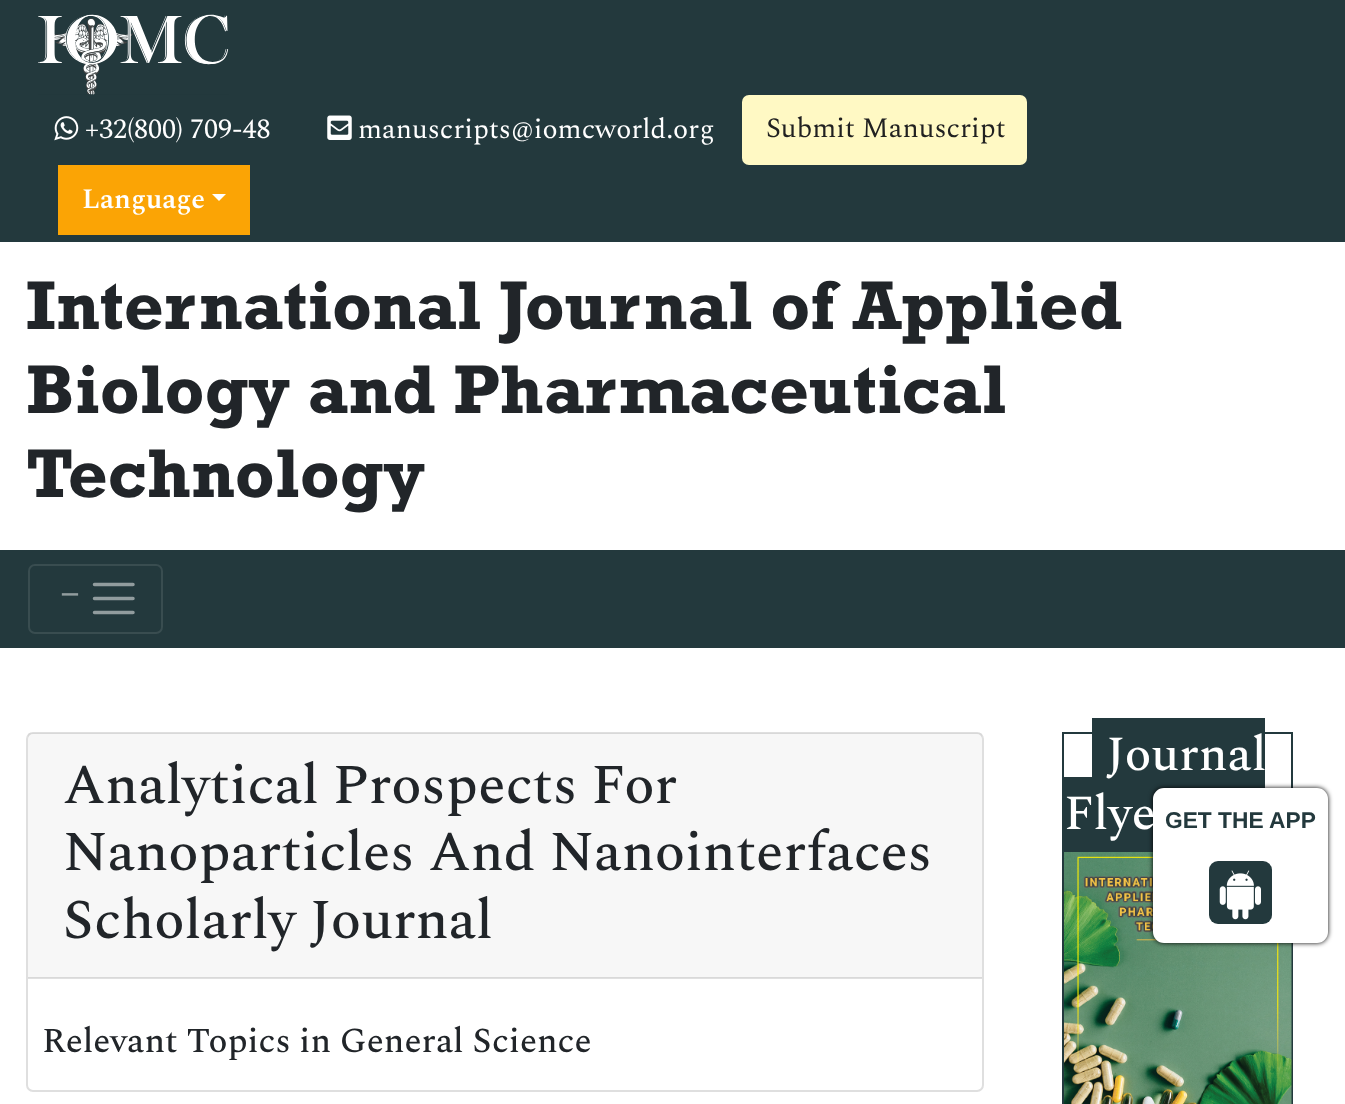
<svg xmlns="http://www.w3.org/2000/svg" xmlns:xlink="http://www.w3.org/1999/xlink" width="1345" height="1104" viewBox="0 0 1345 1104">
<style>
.cls-1{font:28px Spectral;fill:#ffffff}
.cls-2{font:28px Spectral;fill:#212121}
.cls-3{font:600 28px Spectral;fill:#ffffff}
.cls-4{font:bold 70px Rockwell;fill:#212529}
.cls-5{font:bold 35px Liberation Serif;fill:#919c9e}
.cls-6{font:500 56px Spectral;fill:#212529}
.cls-7{font:500 35px Spectral;fill:#212529}
.cls-8{font:500 49px Spectral;fill:#ffffff}
.cls-9{font:bold 22.75px Liberation Sans;fill:#23393d}
</style>
<rect width="100%" height="100%" fill="#ffffff"/>
<rect fill="#23393d" x="0" y="0" width="1345" height="242"/>
<image xlink:href="image0.png" x="38" y="14" width="191" height="81"/>
<image xlink:href="image1.png" x="54" y="116" width="25" height="25"/>
<image xlink:href="image2.png" x="327" y="115" width="25" height="25"/>
<rect fill="#fff9c4" x="742" y="95" width="285" height="70" rx="7"/>
<rect fill="#fba405" x="58" y="165" width="192" height="70"/>
<path fill="#ffffff" d="M212 194H226L219 201Z"/>
<rect fill="#23393d" x="0" y="550" width="1345" height="98"/>
<rect fill="none" stroke="#394d50" stroke-width="2" x="29" y="565" width="133" height="68" rx="6"/>
<path fill="none" stroke="#919c9e" stroke-width="3.5" stroke-linecap="round" d="M94.5 584.5H133M94.5 598.5H133M94.5 612.5H133"/>
<rect fill="none" stroke="#dfdfdf" stroke-width="2" x="27" y="733" width="956" height="358" rx="6"/>
<rect fill="#000000" fill-opacity="0.03" x="28" y="733" width="954" height="245"/>
<rect fill="#000000" fill-opacity="0.12" x="28" y="977" width="954" height="2"/>
<rect fill="none" stroke="#23393d" stroke-width="2" x="1063" y="733" width="229" height="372"/>
<rect fill="#23393d" x="1092" y="718" width="173" height="70"/>
<rect fill="#23393d" x="1064" y="777" width="124" height="75"/>
<image xlink:href="image3.png" x="1064" y="852" width="228" height="252"/>
<rect fill="#000000" filter="blur(2.5px)" x="1153" y="788" width="175" height="155" rx="11"/>
<rect fill="#ffffff" stroke="#ffffff" stroke-width="2" x="1154" y="789" width="173" height="153" rx="10"/>
<rect fill="#23393d" x="1209" y="861" width="63" height="63" rx="9"/>
<image xlink:href="image4.png" x="1219" y="870" width="42" height="50"/>
<text class="cls-1" x="85" y="138">+32(800) 709-48</text>
<text class="cls-1" x="358" y="138">manuscripts@iomcworld.org</text>
<text class="cls-2" x="766" y="137">Submit Manuscript</text>
<text class="cls-3" x="82" y="208">Language</text>
<text class="cls-4"><tspan x="26" y="329">International Journal of Applied</tspan><tspan x="26" y="413">Biology and Pharmaceutical</tspan><tspan x="26" y="497">Technology</tspan></text>
<text class="cls-5" x="60" y="606">−</text>
<text class="cls-6"><tspan x="63" y="803">Analytical Prospects For</tspan><tspan x="63" y="870">Nanoparticles And Nanointerfaces</tspan><tspan x="63" y="938">Scholarly Journal</tspan></text>
<text class="cls-7" x="42" y="1052">Relevant Topics in General Science</text>
<text class="cls-8" x="1106" y="770">Journal</text>
<text class="cls-8" x="1064" y="829">Flye</text>
<text class="cls-9" x="1165" y="828">GET THE APP</text>
</svg>
